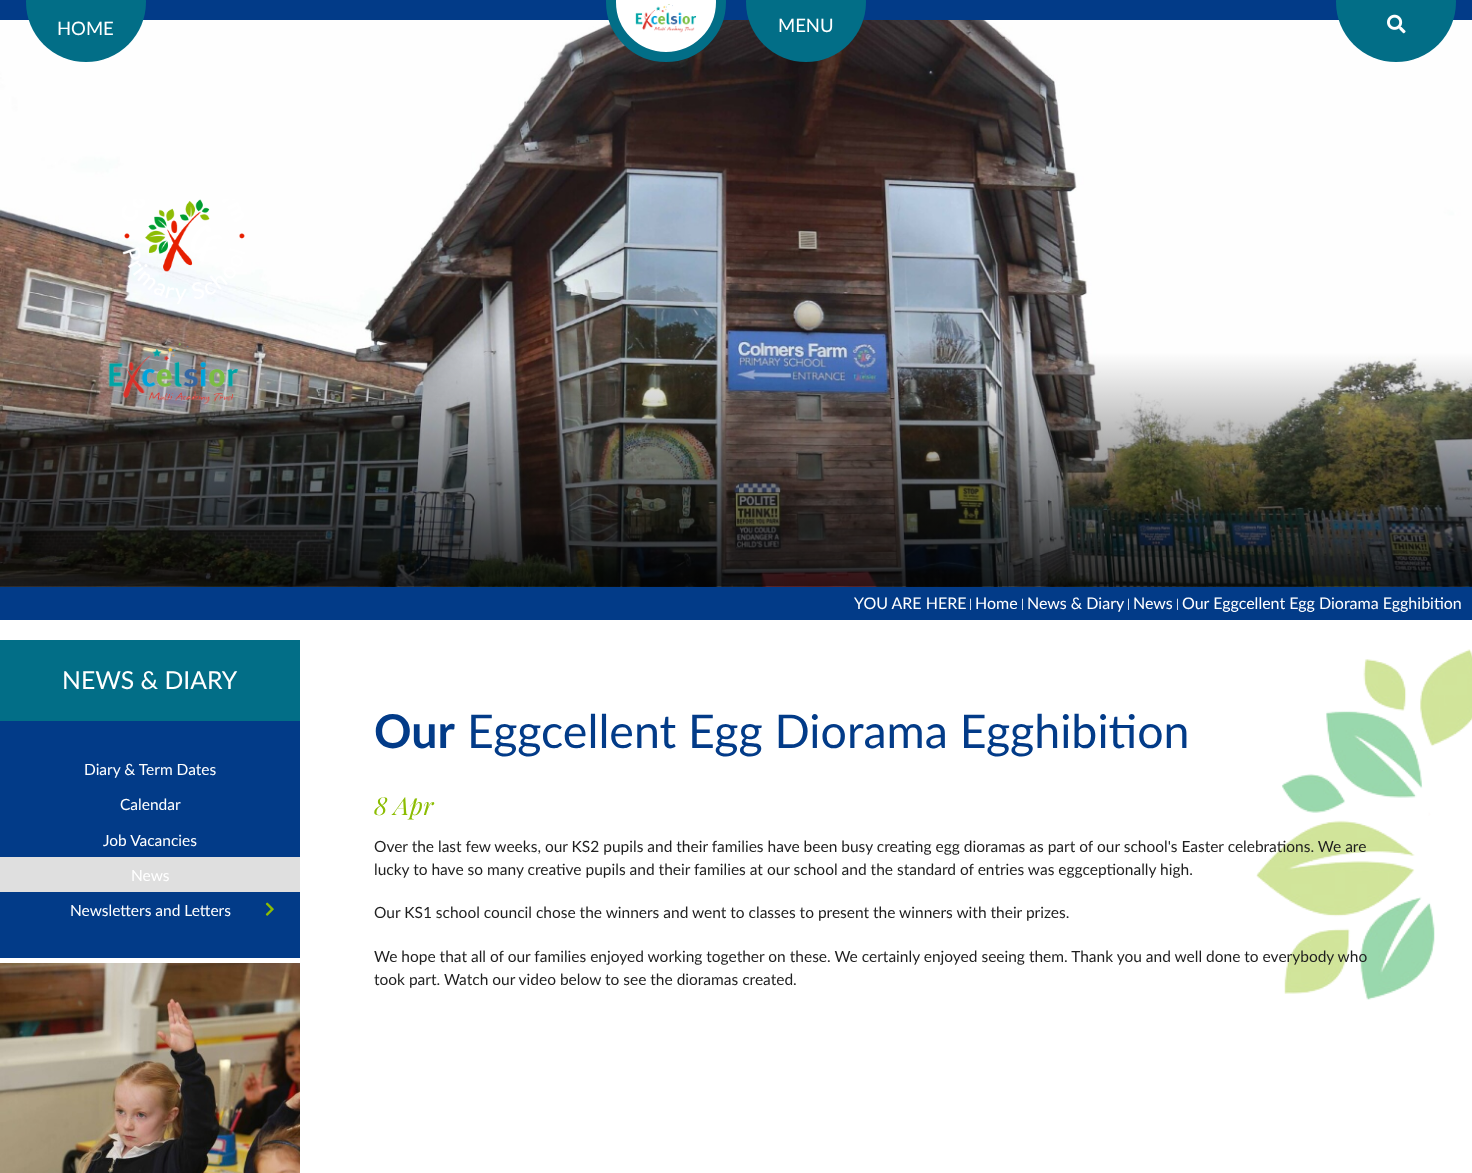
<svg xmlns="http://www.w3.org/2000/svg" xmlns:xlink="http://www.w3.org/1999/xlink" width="1472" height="1173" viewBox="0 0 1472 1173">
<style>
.cls-1{font:18.5px Lato;fill:#ffffff}
.cls-2{font:16px Lato;fill:#ffffff}
.cls-3{font:12px Lato;fill:#ffffff}
.cls-4{font:24.75px Lato;fill:#ffffff}
.cls-5{font:15.5px Lato;fill:#ffffff}
.cls-6{font:bold 46.5px Lato;fill:#023b88}
.cls-7{font:46.5px Lato;fill:#023b88}
.cls-8{font:italic 24.75px Playfair Display;fill:#8cbd02}
.cls-9{font:15.5px Lato;fill:#1f1f1f}
</style>
<rect width="100%" height="100%" fill="#ffffff"/>
<rect fill="#023b88" x="0" y="0" width="1472" height="20"/>
<image xlink:href="image2.png" x="0" y="20" width="1472" height="567"/>
<circle fill="#ffffff" stroke="#026e87" stroke-width="10" cx="666" cy="2" r="55"/>
<image xlink:href="image0.png" x="635" y="4" width="62" height="29"/>
<circle fill="#026e87" cx="86" cy="2" r="60"/>
<circle fill="#026e87" cx="806" cy="2" r="60"/>
<circle fill="#026e87" cx="1396" cy="2" r="60"/>
<image xlink:href="image1.png" x="1387" y="14" width="19" height="20"/>
<image xlink:href="image3.png" x="122" y="199" width="123" height="105"/>
<image xlink:href="image4.png" x="108" y="342" width="131" height="63"/>
<rect fill="#023b88" x="0" y="587" width="1472" height="33"/>
<rect fill="#026e87" x="0" y="640" width="300" height="81"/>
<rect fill="#023b88" x="0" y="721" width="300" height="237"/>
<rect fill="#dfdfdf" x="0" y="857" width="300" height="35"/>
<image xlink:href="image5.png" x="265" y="902" width="9" height="14"/>
<image xlink:href="image6.png" x="0" y="963" width="300" height="210"/>
<image xlink:href="image7.png" x="1256" y="649" width="216" height="351"/>
<text class="cls-1" x="57" y="35">HOME</text>
<text class="cls-1" x="778" y="32">MENU</text>
<text class="cls-2" x="854" y="609">YOU ARE HERE</text>
<text class="cls-3" x="969" y="608">|</text>
<text class="cls-2" x="975" y="609">Home</text>
<text class="cls-3" x="1021" y="608">|</text>
<text class="cls-2" x="1027" y="609">News &amp; Diary</text>
<text class="cls-3" x="1127" y="608">|</text>
<text class="cls-2" x="1133" y="609">News</text>
<text class="cls-3" x="1176" y="608">|</text>
<text class="cls-2" x="1182" y="609">Our Eggcellent Egg Diorama Egghibition</text>
<text class="cls-4" x="62" y="689">NEWS &amp; DIARY</text>
<text class="cls-5" x="84" y="775">Diary &amp; Term Dates</text>
<text class="cls-5" x="120" y="810">Calendar</text>
<text class="cls-5" x="103" y="846">Job Vacancies</text>
<text class="cls-5" x="131" y="881">News</text>
<text class="cls-5" x="70" y="916">Newsletters and Letters</text>
<text class="cls-6" x="374" y="748">Our</text>
<text class="cls-7" x="467" y="748">Eggcellent Egg Diorama Egghibition</text>
<text class="cls-8" x="374" y="815">8 Apr</text>
<text class="cls-9"><tspan x="374" y="852">Over the last few weeks, our KS2 pupils and their families have been busy creating egg dioramas as part of our school's Easter celebrations. We are</tspan><tspan x="374" y="875">lucky to have so many creative pupils and their families at our school and the standard of entries was eggceptionally high.</tspan></text>
<text class="cls-9" x="374" y="918">Our KS1 school council chose the winners and went to classes to present the winners with their prizes.</text>
<text class="cls-9"><tspan x="374" y="962">We hope that all of our families enjoyed working together on these. We certainly enjoyed seeing them. Thank you and well done to everybody who</tspan><tspan x="374" y="985">took part. Watch our video below to see the dioramas created.</tspan></text>
</svg>
